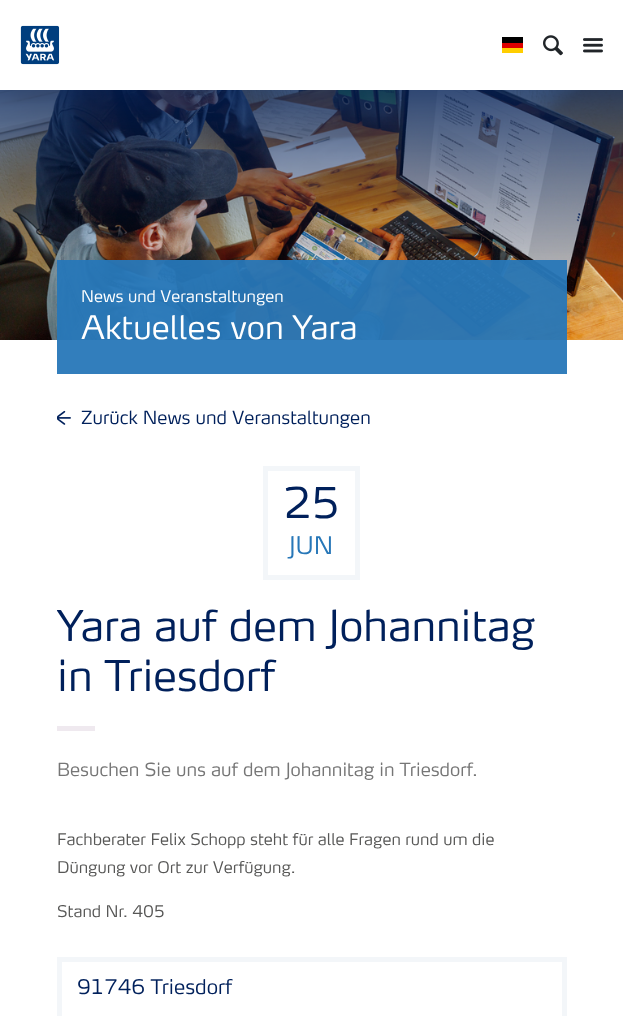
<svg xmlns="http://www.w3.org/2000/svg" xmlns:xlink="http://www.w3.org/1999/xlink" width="623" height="1016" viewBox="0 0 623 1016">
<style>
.cls-1{font:300 16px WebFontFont;fill:#ffffff}
.cls-2{font:300 32px WebFontFont;fill:#ffffff}
.cls-3{font:300 18px WebFontFont;fill:#00205b}
.cls-4{font:300 42px WebFontFont;fill:#00205b}
.cls-5{font:300 24px WebFontFont;fill:#2777b8}
.cls-6{font:300 18px WebFontFont;fill:#767676}
.cls-7{font:300 16px WebFontFont;fill:#575756}
.cls-8{font:300 20px WebFontFont;fill:#00205b}
</style>
<rect width="100%" height="100%" fill="#ffffff"/>
<image xlink:href="image0.png" x="20" y="25" width="40" height="40"/>
<rect fill="#000000" x="502" y="37" width="21" height="6"/>
<rect fill="#dd0000" x="502" y="43" width="21" height="5"/>
<rect fill="#ffce00" x="502" y="48" width="21" height="5"/>
<image xlink:href="image1.png" x="543" y="35" width="20" height="21"/>
<image xlink:href="image2.png" x="583" y="38" width="20" height="15"/>
<image xlink:href="image3.png" x="0" y="90" width="623" height="250"/>
<rect fill="#2777b8" fill-opacity="0.95" x="57" y="260" width="510" height="114"/>
<image xlink:href="image4.png" x="57" y="410" width="14" height="15"/>
<rect fill="none" stroke="#f3f6f9" stroke-width="5" x="265.5" y="468.5" width="92" height="109"/>
<rect fill="#efe9ef" x="57" y="726" width="38" height="5"/>
<rect fill="none" stroke="#f3f6f9" stroke-width="5" x="59.5" y="959.5" width="505" height="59"/>
<text class="cls-1" x="81" y="302">News und Veranstaltungen</text>
<text class="cls-2" x="81" y="339">Aktuelles von Yara</text>
<text class="cls-3" x="81" y="424">Zurück News und Veranstaltungen</text>
<text class="cls-4" x="283" y="518">25</text>
<text class="cls-5" x="289" y="554">JUN</text>
<text class="cls-4"><tspan x="57" y="641">Yara auf dem Johannitag</tspan><tspan x="57" y="691">in Triesdorf</tspan></text>
<text class="cls-6" x="57" y="776">Besuchen Sie uns auf dem Johannitag in Triesdorf.</text>
<text class="cls-7"><tspan x="57" y="845">Fachberater Felix Schopp steht für alle Fragen rund um die</tspan><tspan x="57" y="873">Düngung vor Ort zur Verfügung.</tspan></text>
<text class="cls-7" x="57" y="917">Stand Nr. 405</text>
<text class="cls-8" x="77" y="994">91746 Triesdorf</text>
</svg>
